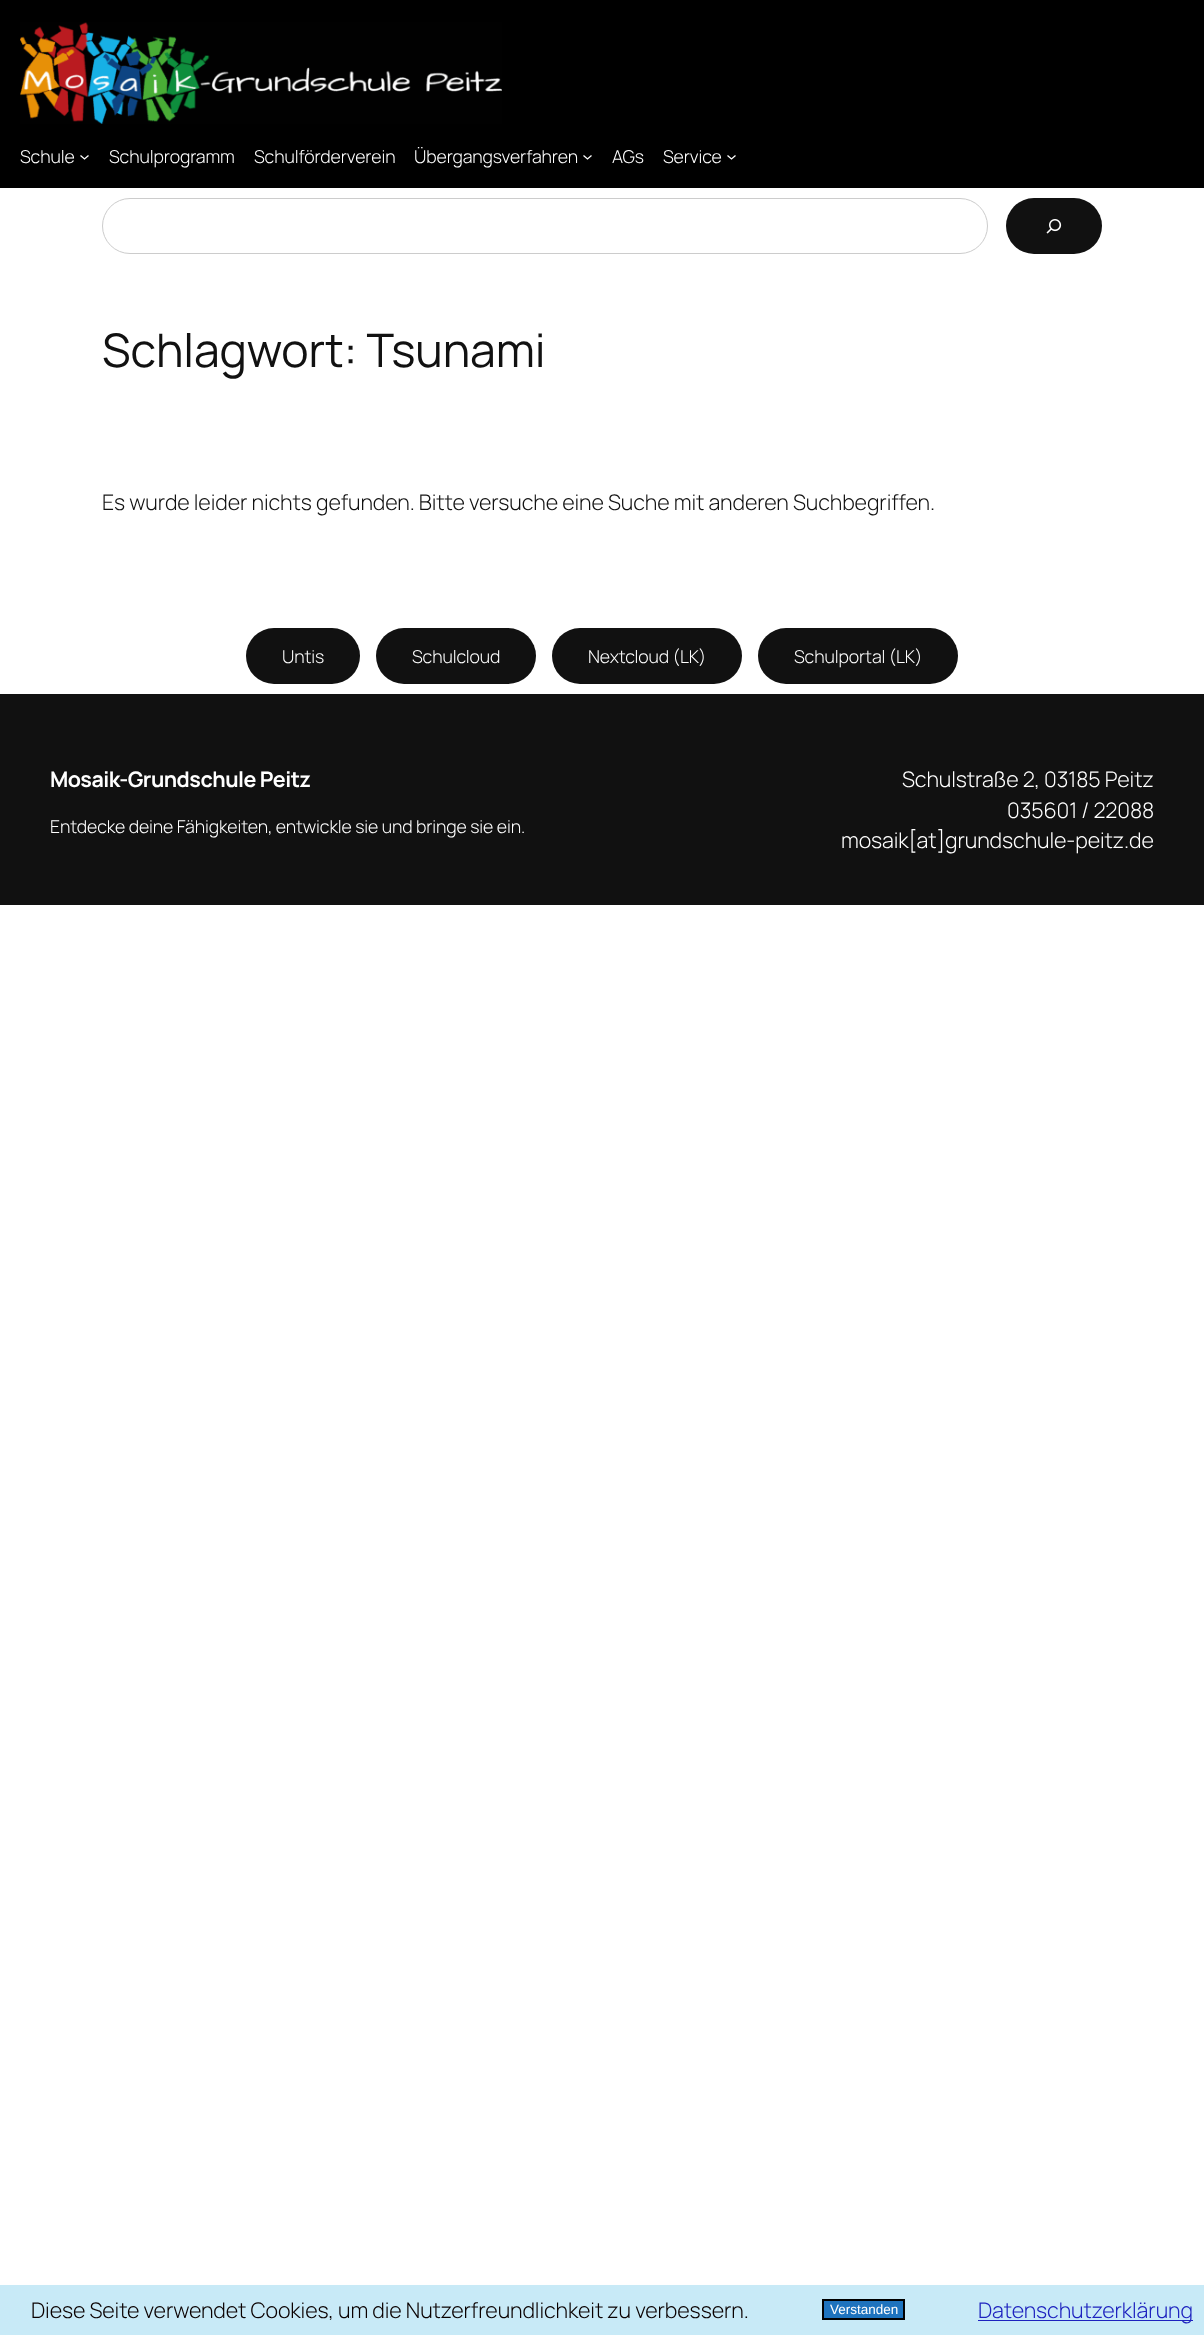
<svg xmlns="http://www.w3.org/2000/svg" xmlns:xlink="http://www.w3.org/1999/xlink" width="1204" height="2335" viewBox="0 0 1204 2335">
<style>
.cls-1{font:300 17.75px Manrope;letter-spacing:-0.1px;fill:#ffffff}
.cls-2{font:46.25px Manrope;letter-spacing:-0.1px;fill:#111111}
.cls-3{font:300 21.45px Manrope;letter-spacing:-0.1px;fill:#111111}
.cls-4{font:bold 21.45px Manrope;letter-spacing:-0.5px;fill:#ffffff}
.cls-5{font:300 21.45px Manrope;letter-spacing:-0.1px;fill:#ffffff}
.cls-6{font:300 21.45px Manrope;letter-spacing:-0.1px;fill:#0a0000}
.cls-7{font:13.5px Liberation Sans;fill:#ffffff}
.cls-8{font:300 21.45px Manrope;letter-spacing:-0.1px;fill:#1e23bf}
</style>
<rect width="100%" height="100%" fill="#ffffff"/>
<rect fill="#000000" x="0" y="0" width="1204" height="188"/>
<image xlink:href="image0.png" x="20" y="22" width="482" height="102"/>
<path fill="none" stroke="#ffffff" stroke-width="1.3" d="M80.5 155.5L84.5 159L88.5 155.5"/>
<path fill="none" stroke="#ffffff" stroke-width="1.3" d="M583.5 155.5L587.5 159L591.5 155.5"/>
<path fill="none" stroke="#ffffff" stroke-width="1.3" d="M727.5 155.5L731.5 159L735.5 155.5"/>
<rect fill="none" stroke="#cccccc" x="102.5" y="198.5" width="885" height="55" rx="27.5"/>
<rect fill="#111111" x="1006" y="198" width="96" height="56" rx="28"/>
<image xlink:href="image1.png" x="1046" y="219" width="16" height="15"/>
<rect fill="#111111" x="246" y="628" width="114" height="56" rx="28"/>
<rect fill="#111111" x="376" y="628" width="160" height="56" rx="28"/>
<rect fill="#111111" x="552" y="628" width="190" height="56" rx="28"/>
<rect fill="#111111" x="758" y="628" width="200" height="56" rx="28"/>
<rect fill="#111111" x="0" y="694" width="1204" height="211"/>
<rect fill="#c8eaf7" x="0" y="2285" width="1204" height="50"/>
<rect fill="#1e73be" stroke="#000000" stroke-width="2" x="823" y="2300" width="81" height="19"/>
<rect fill="#1e23bf" x="978" y="2320" width="215" height="1"/>
<text class="cls-1" x="20" y="163">Schule</text>
<text class="cls-1" x="109" y="163">Schulprogramm</text>
<text class="cls-1" x="254" y="163">Schulförderverein</text>
<text class="cls-1" x="414" y="163">Übergangsverfahren</text>
<text class="cls-1" x="612" y="163">AGs</text>
<text class="cls-1" x="663" y="163">Service</text>
<text class="cls-2" x="102" y="367">Schlagwort: Tsunami</text>
<text class="cls-3" x="102" y="510">Es wurde leider nichts gefunden. Bitte versuche eine Suche mit anderen Suchbegriffen.</text>
<text class="cls-1" x="282" y="663">Untis</text>
<text class="cls-1" x="412" y="663">Schulcloud</text>
<text class="cls-1" x="588" y="663">Nextcloud (LK)</text>
<text class="cls-1" x="794" y="663">Schulportal (LK)</text>
<text class="cls-4" x="50" y="787">Mosaik-Grundschule Peitz</text>
<text class="cls-1" x="50" y="833">Entdecke deine Fähigkeiten, entwickle sie und bringe sie ein.</text>
<text class="cls-5" x="902" y="787">Schulstraße 2, 03185 Peitz</text>
<text class="cls-5" x="1007" y="818">035601 / 22088</text>
<text class="cls-5" x="841" y="848">mosaik[at]grundschule-peitz.de</text>
<text class="cls-6" x="31" y="2318">Diese Seite verwendet Cookies, um die Nutzerfreundlichkeit zu verbessern.</text>
<text class="cls-7" x="830" y="2314">Verstanden</text>
<text class="cls-8" x="978" y="2318">Datenschutzerklärung</text>
</svg>
